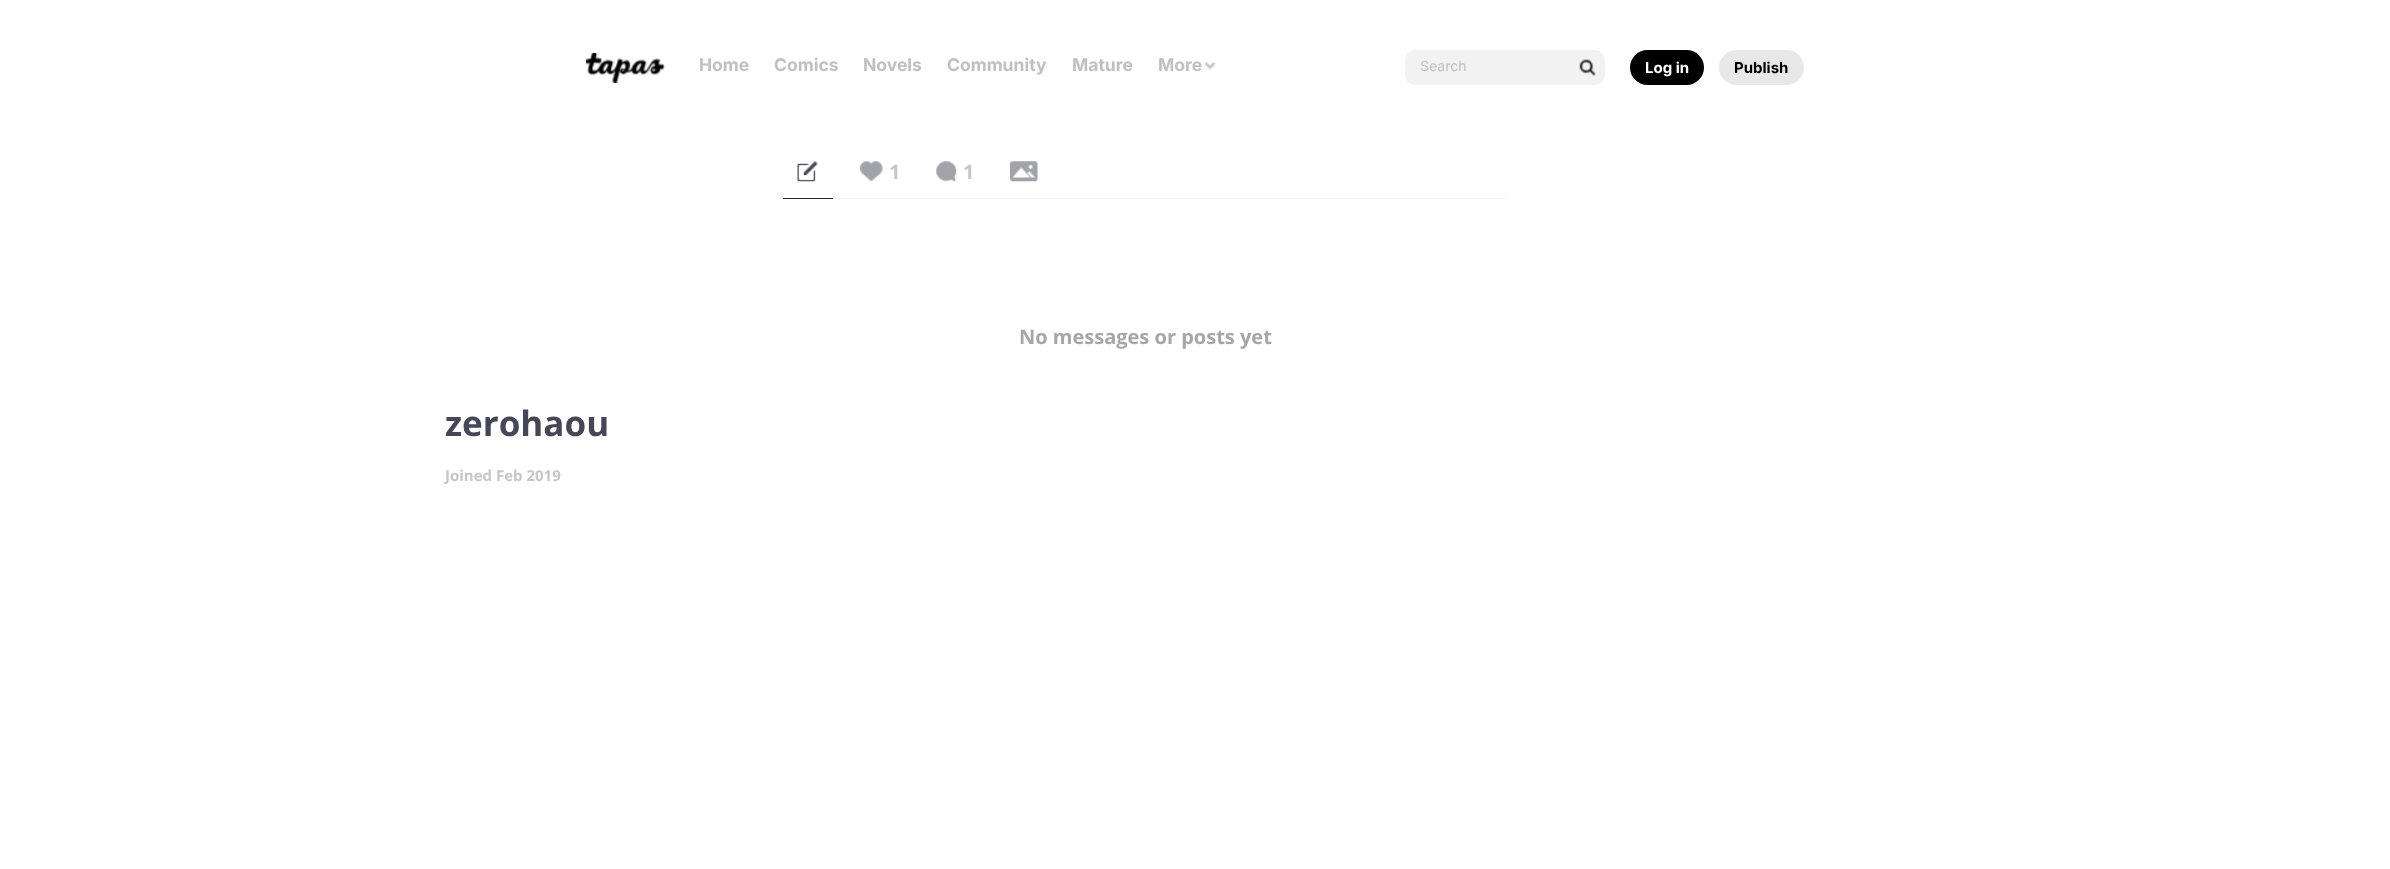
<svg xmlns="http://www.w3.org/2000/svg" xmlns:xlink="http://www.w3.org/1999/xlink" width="2390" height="869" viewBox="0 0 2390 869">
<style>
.cls-1{font:bold 17.5px Inter;fill:#c0c0c0}
.cls-2{font:14px Inter;fill:#c0c0c0}
.cls-3{font:bold 15px Inter;fill:#ffffff}
.cls-4{font:bold 15px Inter;fill:#000000}
.cls-5{font:bold 20px Open Sans;fill:#c6c6c6}
.cls-6{font:bold 20px Open Sans;fill:#a6a6a6}
.cls-7{font:bold 35px Open Sans;fill:#464656}
.cls-8{font:bold 15px Open Sans;fill:#c6c6c6}
</style>
<rect width="100%" height="100%" fill="#ffffff"/>
<image xlink:href="image0.png" x="586" y="53" width="79" height="30"/>
<image xlink:href="image1.png" x="1204" y="62" width="12" height="8"/>
<rect fill="#f2f2f2" x="1405" y="50" width="200" height="35" rx="10"/>
<image xlink:href="image2.png" x="1579" y="59" width="17" height="17"/>
<rect fill="#000000" x="1630" y="50" width="74" height="35" rx="17.5"/>
<rect fill="#e8e8e8" x="1719" y="50" width="85" height="35" rx="17.5"/>
<rect fill="#f6f6f6" x="833" y="198" width="675" height="1"/>
<rect fill="#262636" x="783" y="198" width="50" height="1"/>
<image xlink:href="image3.png" x="797" y="161" width="21" height="21"/>
<image xlink:href="image4.png" x="860" y="161" width="23" height="21"/>
<image xlink:href="image5.png" x="936" y="161" width="21" height="21"/>
<image xlink:href="image6.png" x="1010" y="161" width="28" height="21"/>
<text class="cls-1" x="699" y="71">Home</text>
<text class="cls-1" x="774" y="71">Comics</text>
<text class="cls-1" x="863" y="71">Novels</text>
<text class="cls-1" x="947" y="71">Community</text>
<text class="cls-1" x="1072" y="71">Mature</text>
<text class="cls-1" x="1158" y="71">More</text>
<text class="cls-2" x="1420" y="71">Search</text>
<text class="cls-3" x="1645" y="73">Log in</text>
<text class="cls-4" x="1734" y="73">Publish</text>
<text class="cls-5" x="889" y="179">1</text>
<text class="cls-5" x="963" y="179">1</text>
<text class="cls-6" x="1019" y="344">No messages or posts yet</text>
<text class="cls-7" x="445" y="436">zerohaou</text>
<text class="cls-8" x="445" y="481">Joined Feb 2019</text>
</svg>
